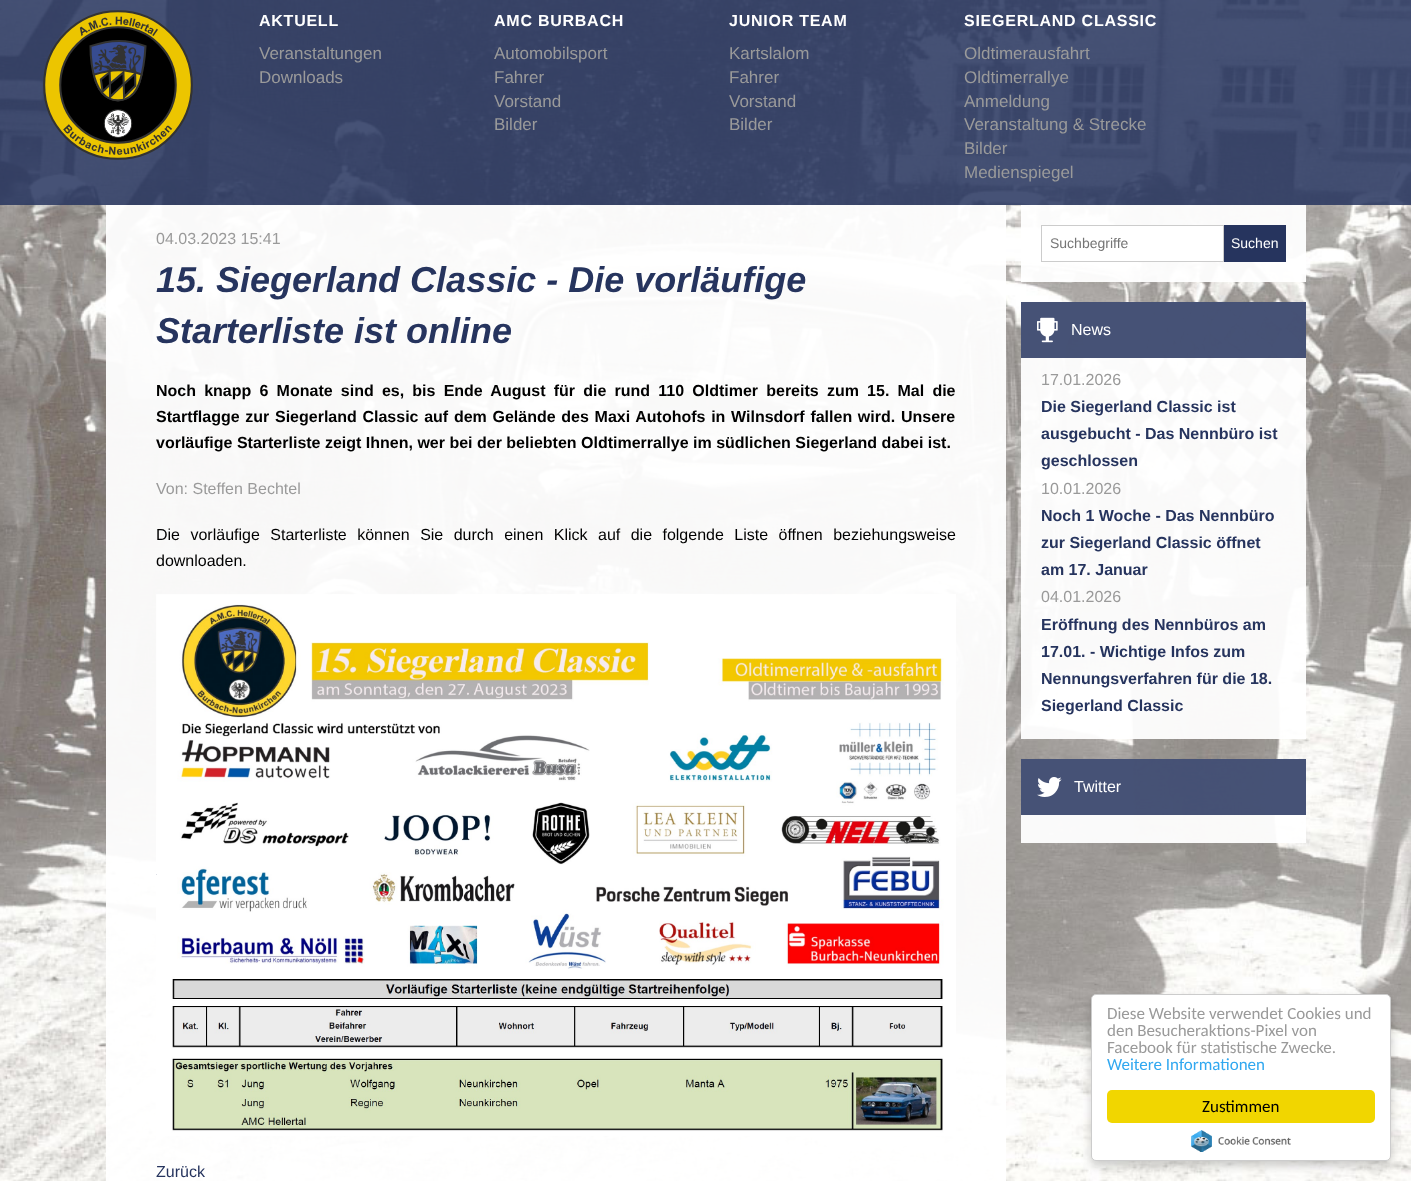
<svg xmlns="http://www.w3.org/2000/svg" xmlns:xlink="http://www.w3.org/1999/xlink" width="1411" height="1181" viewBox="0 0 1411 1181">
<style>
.cls-1{font:bold 16px Liberation Sans;letter-spacing:0.75px;fill:#ffffff}
.cls-2{font:17px Liberation Sans;fill:#9a9a9a}
.cls-3{font:16px Liberation Sans;fill:#9a9a9a}
.cls-4{font:italic bold 36px Liberation Sans;fill:#26345e}
.cls-5{font:bold 16px Liberation Sans;fill:#000000}
.cls-6{font:16px Liberation Sans;fill:#000000}
.cls-7{font:16px Liberation Sans;fill:#26345e}
.cls-8{font:14px Liberation Sans;fill:#757575}
.cls-9{font:14px Liberation Sans;fill:#ffffff}
.cls-10{font:16px Liberation Sans;fill:#ffffff}
.cls-11{font:bold 16px Liberation Sans;fill:#26345e}
.cls-12{font:17px Carlito;fill:#9a9a9a}
.cls-13{font:17px Carlito;fill:#31a8f0}
.cls-14{font:17px Carlito;fill:#000000}
</style>
<rect width="100%" height="100%" fill="#ffffff"/>
<image xlink:href="image0.png" x="0" y="0" width="1411" height="1181"/>
<rect fill="#26345e" fill-opacity="0.85" x="0" y="0" width="1411" height="205"/>
<image xlink:href="image1.png" x="43" y="10" width="150" height="150"/>
<rect fill="#ffffff" fill-opacity="0.95" x="106" y="205" width="900" height="976"/>
<path fill="none" stroke="#26345e" stroke-dasharray="1 1" d="M156 874.5H956"/>
<image xlink:href="image2.png" x="156" y="594" width="800" height="542"/>
<rect fill="#ffffff" fill-opacity="0.95" x="1021" y="205" width="285" height="77"/>
<rect fill="#ffffff" stroke="#cccccc" x="1041.5" y="225.5" width="182" height="36"/>
<rect fill="#26345e" x="1224" y="225" width="62" height="37"/>
<rect fill="#ffffff" fill-opacity="0.95" x="1021" y="302" width="285" height="437"/>
<rect fill="#26345e" fill-opacity="0.85" x="1021" y="302" width="285" height="56"/>
<image xlink:href="image3.png" x="1037" y="317" width="21" height="26"/>
<rect fill="#ffffff" fill-opacity="0.95" x="1021" y="759" width="285" height="84"/>
<rect fill="#26345e" fill-opacity="0.85" x="1021" y="759" width="285" height="56"/>
<image xlink:href="image4.png" x="1037" y="777" width="25" height="20"/>
<rect fill="#000000" fill-opacity="0.2" filter="blur(5px)" x="1091" y="999" width="300" height="167" rx="5"/>
<rect fill="#ffffff" stroke="#cccccc" x="1091.5" y="994.5" width="299" height="166" rx="4.5"/>
<rect fill="#f1d600" x="1107" y="1090" width="268" height="33" rx="5"/>
<image xlink:href="image5.png" x="1191" y="1130" width="100" height="22"/>
<text class="cls-1" x="259" y="26">AKTUELL</text>
<text class="cls-2"><tspan x="259" y="59">Veranstaltungen</tspan><tspan x="259" y="83">Downloads</tspan></text>
<text class="cls-1" x="494" y="26">AMC BURBACH</text>
<text class="cls-2"><tspan x="494" y="59">Automobilsport</tspan><tspan x="494" y="83">Fahrer</tspan><tspan x="494" y="107">Vorstand</tspan><tspan x="494" y="130">Bilder</tspan></text>
<text class="cls-1" x="729" y="26">JUNIOR TEAM</text>
<text class="cls-2"><tspan x="729" y="59">Kartslalom</tspan><tspan x="729" y="83">Fahrer</tspan><tspan x="729" y="107">Vorstand</tspan><tspan x="729" y="130">Bilder</tspan></text>
<text class="cls-1" x="964" y="26">SIEGERLAND CLASSIC</text>
<text class="cls-2"><tspan x="964" y="59">Oldtimerausfahrt</tspan><tspan x="964" y="83">Oldtimerrallye</tspan><tspan x="964" y="107">Anmeldung</tspan><tspan x="964" y="130">Veranstaltung &amp; Strecke</tspan><tspan x="964" y="154">Bilder</tspan><tspan x="964" y="178">Medienspiegel</tspan></text>
<text class="cls-3" x="156" y="244">04.03.2023 15:41</text>
<text class="cls-4"><tspan x="156" y="292">15. Siegerland Classic - Die vorläufige</tspan><tspan x="156" y="343">Starterliste ist online</tspan></text>
<text class="cls-5"><tspan x="156" y="396" word-spacing="3.75">Noch knapp 6 Monate sind es, bis Ende August für die rund 110 Oldtimer bereits zum 15. Mal die</tspan><tspan x="156" y="422" word-spacing="1.25">Startflagge zur Siegerland Classic auf dem Gelände des Maxi Autohofs in Wilnsdorf fallen wird. Unsere</tspan><tspan x="156" y="448">vorläufige Starterliste zeigt Ihnen, wer bei der beliebten Oldtimerrallye im südlichen Siegerland dabei ist.</tspan></text>
<text class="cls-3" x="156" y="494">Von: Steffen Bechtel</text>
<text class="cls-6"><tspan x="156" y="540" word-spacing="6">Die vorläufige Starterliste können Sie durch einen Klick auf die folgende Liste öffnen beziehungsweise</tspan><tspan x="156" y="566">downloaden.</tspan></text>
<text class="cls-7" x="156" y="1177">Zurück</text>
<text class="cls-8" x="1050" y="248">Suchbegriffe</text>
<text class="cls-9" x="1231" y="248">Suchen</text>
<text class="cls-10" x="1071" y="335">News</text>
<text class="cls-3" x="1041" y="385">17.01.2026</text>
<text class="cls-11"><tspan x="1041" y="412">Die Siegerland Classic ist</tspan><tspan x="1041" y="439">ausgebucht - Das Nennbüro ist</tspan><tspan x="1041" y="466">geschlossen</tspan></text>
<text class="cls-3" x="1041" y="494">10.01.2026</text>
<text class="cls-11"><tspan x="1041" y="521">Noch 1 Woche - Das Nennbüro</tspan><tspan x="1041" y="548">zur Siegerland Classic öffnet</tspan><tspan x="1041" y="575">am 17. Januar</tspan></text>
<text class="cls-3" x="1041" y="602">04.01.2026</text>
<text class="cls-11"><tspan x="1041" y="630">Eröffnung des Nennbüros am</tspan><tspan x="1041" y="657">17.01. - Wichtige Infos zum</tspan><tspan x="1041" y="684">Nennungsverfahren für die 18.</tspan><tspan x="1041" y="711">Siegerland Classic</tspan></text>
<text class="cls-10" x="1074" y="792">Twitter</text>
<text class="cls-12"><tspan x="1107" y="1019">Diese Website verwendet Cookies und</tspan><tspan x="1107" y="1036">den Besucheraktions-Pixel von</tspan><tspan x="1107" y="1053">Facebook für statistische Zwecke.</tspan></text>
<text class="cls-13" x="1107" y="1070">Weitere Informationen</text>
<text class="cls-14" x="1202" y="1112">Zustimmen</text>
</svg>
